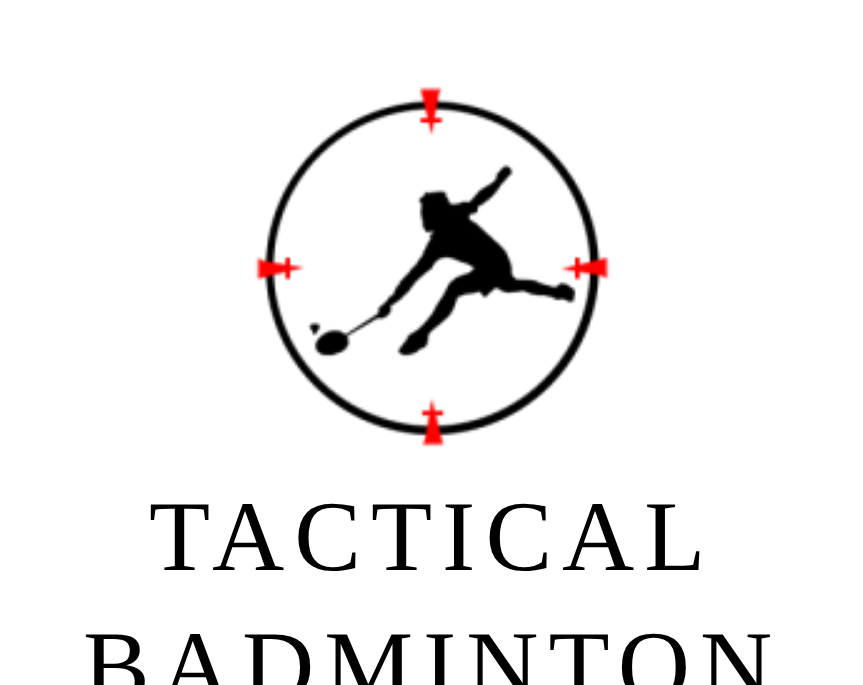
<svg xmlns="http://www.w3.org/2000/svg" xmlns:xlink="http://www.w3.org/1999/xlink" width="863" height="685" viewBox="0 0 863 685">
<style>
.cls-1{font:100px Liberation Serif;letter-spacing:10px;fill:#000000}
</style>
<rect width="100%" height="100%" fill="#ffffff"/>
<image xlink:href="image0.png" x="254" y="86" width="357" height="362"/>
<text class="cls-1" x="149" y="570">TACTICAL</text>
<text class="cls-1" x="83" y="700">BADMINTON</text>
</svg>
